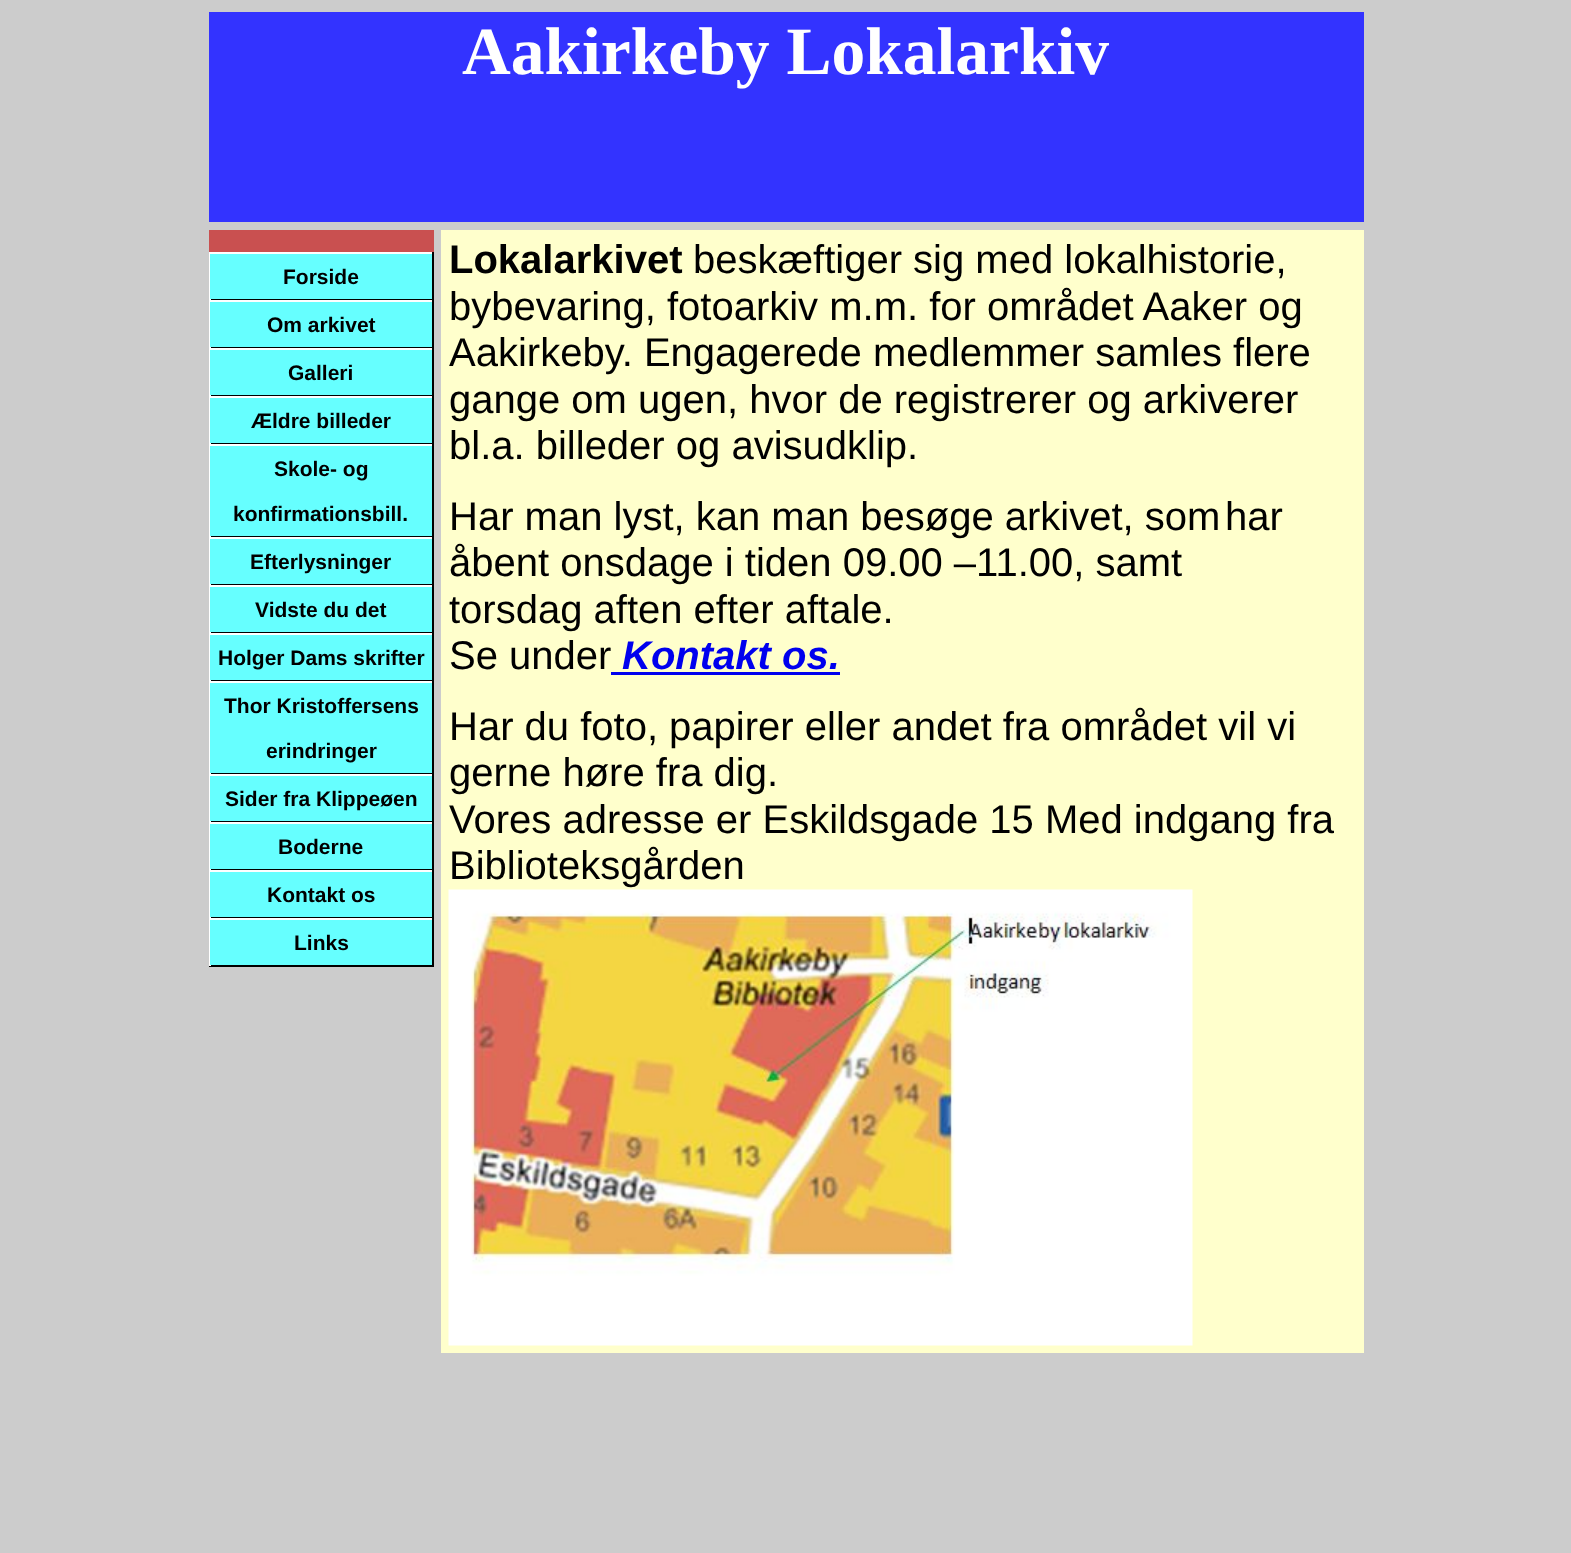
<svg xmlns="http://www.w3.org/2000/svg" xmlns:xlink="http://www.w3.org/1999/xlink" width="1571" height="1553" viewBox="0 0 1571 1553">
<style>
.cls-1{font:bold 67.5px Liberation Serif;fill:#ffffff}
.cls-2{font:bold 21px Liberation Sans;fill:#000000}
.cls-3{font:bold 40px Liberation Sans;fill:#000000}
.cls-4{font:40px Liberation Sans;fill:#000000}
.cls-5{font:italic bold 40px Liberation Sans;fill:#0000ee}
</style>
<rect width="100%" height="100%" fill="#cccccc"/>
<rect fill="#3333ff" x="209" y="12" width="1155" height="210"/>
<rect fill="#c95050" x="209" y="230" width="225" height="22"/>
<rect fill="#ffffff" x="209" y="252" width="225" height="2"/>
<rect fill="#000000" x="432" y="252" width="2" height="48"/>
<rect fill="#000000" x="209" y="299" width="225" height="1"/>
<rect fill="#ffffff" x="209" y="252" width="2" height="48"/>
<rect fill="#66ffff" x="210" y="254" width="222" height="45"/>
<rect fill="#ffffff" x="209" y="300" width="225" height="2"/>
<rect fill="#000000" x="432" y="300" width="2" height="48"/>
<rect fill="#000000" x="209" y="347" width="225" height="1"/>
<rect fill="#ffffff" x="209" y="300" width="2" height="48"/>
<rect fill="#66ffff" x="210" y="302" width="222" height="45"/>
<rect fill="#ffffff" x="209" y="348" width="225" height="2"/>
<rect fill="#000000" x="432" y="348" width="2" height="48"/>
<rect fill="#000000" x="209" y="395" width="225" height="1"/>
<rect fill="#ffffff" x="209" y="348" width="2" height="48"/>
<rect fill="#66ffff" x="210" y="350" width="222" height="45"/>
<rect fill="#ffffff" x="209" y="396" width="225" height="2"/>
<rect fill="#000000" x="432" y="396" width="2" height="48"/>
<rect fill="#000000" x="209" y="443" width="225" height="1"/>
<rect fill="#ffffff" x="209" y="396" width="2" height="48"/>
<rect fill="#66ffff" x="210" y="398" width="222" height="45"/>
<rect fill="#ffffff" x="209" y="444" width="225" height="2"/>
<rect fill="#000000" x="432" y="444" width="2" height="93"/>
<rect fill="#000000" x="209" y="536" width="225" height="1"/>
<rect fill="#ffffff" x="209" y="444" width="2" height="93"/>
<rect fill="#66ffff" x="210" y="446" width="222" height="90"/>
<rect fill="#ffffff" x="209" y="537" width="225" height="2"/>
<rect fill="#000000" x="432" y="537" width="2" height="48"/>
<rect fill="#000000" x="209" y="584" width="225" height="1"/>
<rect fill="#ffffff" x="209" y="537" width="2" height="48"/>
<rect fill="#66ffff" x="210" y="539" width="222" height="45"/>
<rect fill="#ffffff" x="209" y="585" width="225" height="2"/>
<rect fill="#000000" x="432" y="585" width="2" height="48"/>
<rect fill="#000000" x="209" y="632" width="225" height="1"/>
<rect fill="#ffffff" x="209" y="585" width="2" height="48"/>
<rect fill="#66ffff" x="210" y="587" width="222" height="45"/>
<rect fill="#ffffff" x="209" y="633" width="225" height="2"/>
<rect fill="#000000" x="432" y="633" width="2" height="48"/>
<rect fill="#000000" x="209" y="680" width="225" height="1"/>
<rect fill="#ffffff" x="209" y="633" width="2" height="48"/>
<rect fill="#66ffff" x="210" y="635" width="222" height="45"/>
<rect fill="#ffffff" x="209" y="681" width="225" height="2"/>
<rect fill="#000000" x="432" y="681" width="2" height="93"/>
<rect fill="#000000" x="209" y="773" width="225" height="1"/>
<rect fill="#ffffff" x="209" y="681" width="2" height="93"/>
<rect fill="#66ffff" x="210" y="683" width="222" height="90"/>
<rect fill="#ffffff" x="209" y="774" width="225" height="2"/>
<rect fill="#000000" x="432" y="774" width="2" height="48"/>
<rect fill="#000000" x="209" y="821" width="225" height="1"/>
<rect fill="#ffffff" x="209" y="774" width="2" height="48"/>
<rect fill="#66ffff" x="210" y="776" width="222" height="45"/>
<rect fill="#ffffff" x="209" y="822" width="225" height="2"/>
<rect fill="#000000" x="432" y="822" width="2" height="48"/>
<rect fill="#000000" x="209" y="869" width="225" height="1"/>
<rect fill="#ffffff" x="209" y="822" width="2" height="48"/>
<rect fill="#66ffff" x="210" y="824" width="222" height="45"/>
<rect fill="#ffffff" x="209" y="870" width="225" height="2"/>
<rect fill="#000000" x="432" y="870" width="2" height="48"/>
<rect fill="#000000" x="209" y="917" width="225" height="1"/>
<rect fill="#ffffff" x="209" y="870" width="2" height="48"/>
<rect fill="#66ffff" x="210" y="872" width="222" height="45"/>
<rect fill="#ffffff" x="209" y="918" width="225" height="2"/>
<rect fill="#000000" x="432" y="918" width="2" height="48"/>
<rect fill="#000000" x="209" y="965" width="225" height="2"/>
<rect fill="#ffffff" x="209" y="918" width="2" height="48"/>
<rect fill="#66ffff" x="210" y="920" width="222" height="45"/>
<rect fill="#ffffcc" x="441" y="230" width="923" height="1123"/>
<rect fill="#0000ee" x="611" y="672" width="229" height="3"/>
<image xlink:href="image0.png" x="448" y="889" width="745" height="457"/>
<text class="cls-1" x="462" y="74">Aakirkeby Lokalarkiv</text>
<text class="cls-2" x="283" y="284">Forside</text>
<text class="cls-2" x="267" y="332">Om arkivet</text>
<text class="cls-2" x="288" y="380">Galleri</text>
<text class="cls-2" x="251" y="428">Ældre billeder</text>
<text class="cls-2" x="274" y="476">Skole- og</text>
<text class="cls-2" x="233" y="521">konfirmationsbill.</text>
<text class="cls-2" x="250" y="569">Efterlysninger</text>
<text class="cls-2" x="255" y="617">Vidste du det</text>
<text class="cls-2" x="218" y="665">Holger Dams skrifter</text>
<text class="cls-2" x="224" y="713">Thor Kristoffersens</text>
<text class="cls-2" x="266" y="758">erindringer</text>
<text class="cls-2" x="225" y="806">Sider fra Klippeøen</text>
<text class="cls-2" x="278" y="854">Boderne</text>
<text class="cls-2" x="267" y="902">Kontakt os</text>
<text class="cls-2" x="294" y="950">Links</text>
<text class="cls-3" x="449" y="273">Lokalarkivet</text>
<text class="cls-4" x="693" y="273">beskæftiger sig med lokalhistorie,</text>
<text class="cls-4"><tspan x="449" y="320">bybevaring, fotoarkiv m.m. for området Aaker og</tspan><tspan x="449" y="366">Aakirkeby. Engagerede medlemmer samles flere</tspan><tspan x="449" y="413">gange om ugen, hvor de registrerer og arkiverer</tspan><tspan x="449" y="459">bl.a. billeder og avisudklip.</tspan><tspan x="449" y="530">Har man lyst, kan man besøge arkivet, som</tspan></text>
<text class="cls-4" x="1225" y="530">har</text>
<text class="cls-4"><tspan x="449" y="576">åbent onsdage i tiden 09.00 –11.00, samt</tspan><tspan x="449" y="623">torsdag aften efter aftale.</tspan><tspan x="449" y="669">Se under</tspan></text>
<text class="cls-5" x="622" y="669">Kontakt os.</text>
<text class="cls-4"><tspan x="449" y="740">Har du foto, papirer eller andet fra området vil vi</tspan><tspan x="449" y="786">gerne høre fra dig.</tspan><tspan x="449" y="833">Vores adresse er Eskildsgade 15 Med indgang fra</tspan><tspan x="449" y="879">Biblioteksgården</tspan></text>
</svg>
